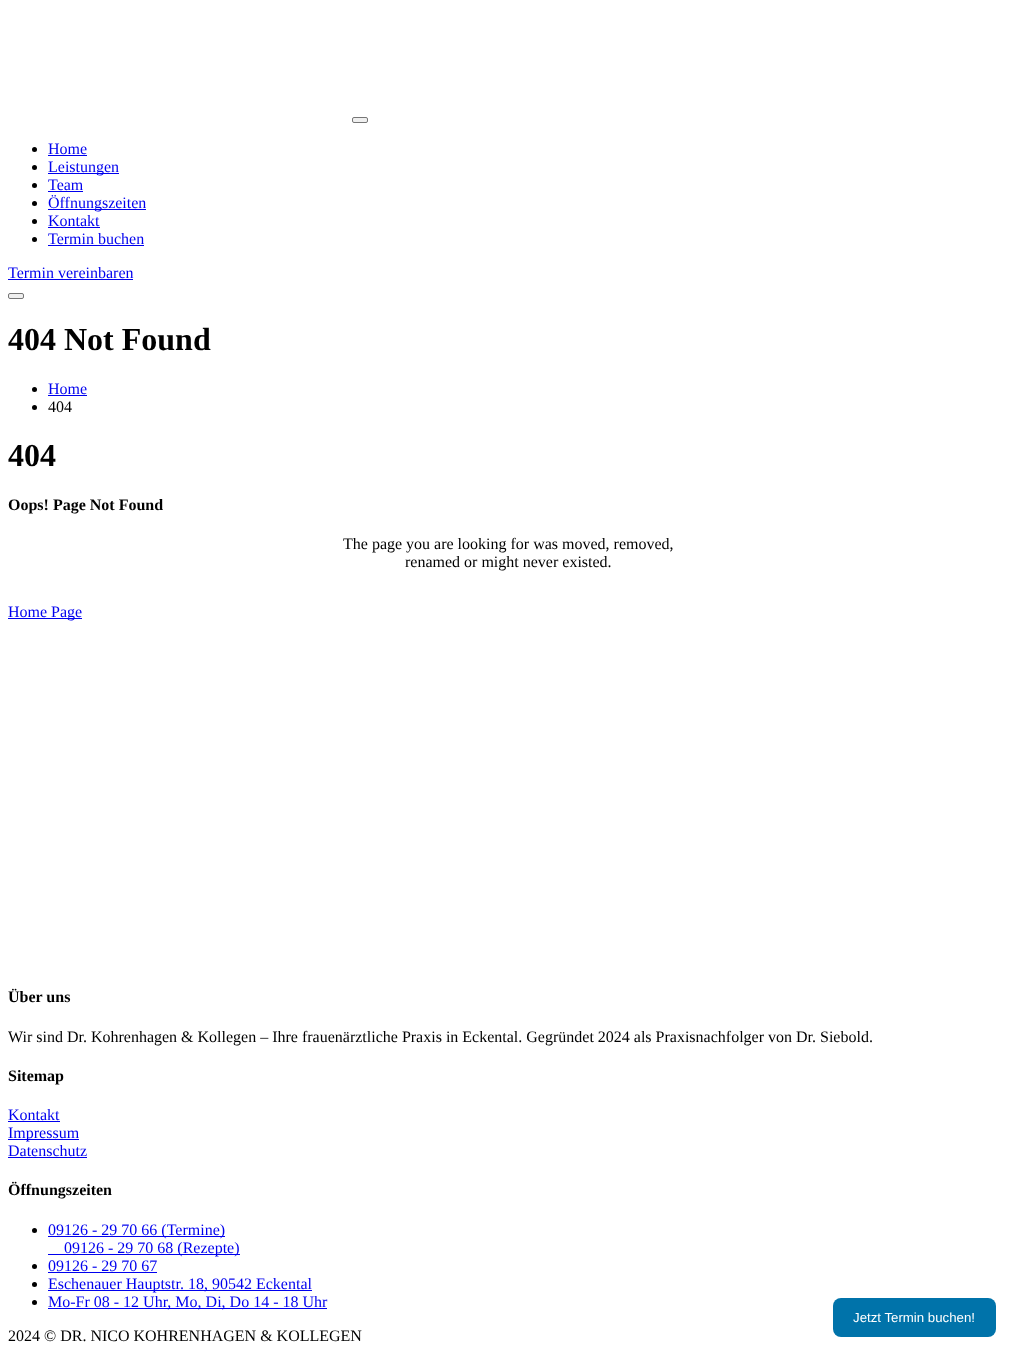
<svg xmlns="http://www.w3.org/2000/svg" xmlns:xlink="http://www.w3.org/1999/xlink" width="1016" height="1357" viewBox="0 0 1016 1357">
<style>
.cls-1{font:16px Liberation Serif;fill:#0000ee}
.cls-2{font:bold 32px Liberation Serif;fill:#000000}
.cls-3{font:16px Liberation Serif;fill:#000000}
.cls-4{font:bold 16px Liberation Serif;fill:#000000}
.cls-5{font:13.25px Liberation Sans;fill:#ffffff}
</style>
<rect width="100%" height="100%" fill="#ffffff"/>
<rect fill="#efefef" stroke="#767676" x="352.5" y="117.5" width="15" height="5" rx="1.5"/>
<circle fill="#000000" cx="34.5" cy="149.5" r="2.5"/>
<rect fill="#0000ee" x="48" y="155" width="39" height="1"/>
<circle fill="#000000" cx="34.5" cy="167.5" r="2.5"/>
<rect fill="#0000ee" x="48" y="173" width="71" height="1"/>
<circle fill="#000000" cx="34.5" cy="185.5" r="2.5"/>
<rect fill="#0000ee" x="48" y="191" width="35" height="1"/>
<circle fill="#000000" cx="34.5" cy="203.5" r="2.5"/>
<rect fill="#0000ee" x="48" y="209" width="98" height="1"/>
<circle fill="#000000" cx="34.5" cy="221.5" r="2.5"/>
<rect fill="#0000ee" x="48" y="227" width="52" height="1"/>
<circle fill="#000000" cx="34.5" cy="239.5" r="2.5"/>
<rect fill="#0000ee" x="48" y="245" width="96" height="1"/>
<rect fill="#0000ee" x="8" y="279" width="125" height="1"/>
<rect fill="#efefef" stroke="#767676" x="8.5" y="293.5" width="15" height="5" rx="1.5"/>
<circle fill="#000000" cx="34.5" cy="389.5" r="2.5"/>
<rect fill="#0000ee" x="48" y="395" width="39" height="1"/>
<circle fill="#000000" cx="34.5" cy="407.5" r="2.5"/>
<rect fill="#0000ee" x="8" y="618" width="74" height="1"/>
<rect fill="#0000ee" x="8" y="1121" width="52" height="1"/>
<rect fill="#0000ee" x="8" y="1139" width="71" height="1"/>
<rect fill="#0000ee" x="8" y="1157" width="79" height="1"/>
<circle fill="#000000" cx="34.5" cy="1230.5" r="2.5"/>
<rect fill="#0000ee" x="48" y="1236" width="177" height="1"/>
<rect fill="#0000ee" x="48" y="1254" width="192" height="1"/>
<circle fill="#000000" cx="34.5" cy="1266.5" r="2.5"/>
<rect fill="#0000ee" x="48" y="1272" width="109" height="1"/>
<circle fill="#000000" cx="34.5" cy="1284.5" r="2.5"/>
<rect fill="#0000ee" x="48" y="1290" width="264" height="1"/>
<circle fill="#000000" cx="34.5" cy="1302.5" r="2.5"/>
<rect fill="#0000ee" x="48" y="1308" width="279" height="1"/>
<rect fill="#0073aa" x="833" y="1298" width="163" height="39" rx="8"/>
<text class="cls-1"><tspan x="48" y="154">Home</tspan><tspan x="48" y="172">Leistungen</tspan><tspan x="48" y="190">Team</tspan><tspan x="48" y="208">Öffnungszeiten</tspan><tspan x="48" y="226">Kontakt</tspan><tspan x="48" y="244">Termin buchen</tspan></text>
<text class="cls-1" x="8" y="278">Termin vereinbaren</text>
<text class="cls-2" x="8" y="350">404 Not Found</text>
<text class="cls-1" x="48" y="394">Home</text>
<text class="cls-3" x="48" y="412">404</text>
<text class="cls-2" x="8" y="466">404</text>
<text class="cls-4" x="8" y="510">Oops! Page Not Found</text>
<text class="cls-3" x="343" y="549">The page you are looking for was moved, removed,</text>
<text class="cls-3" x="405" y="567">renamed or might never existed.</text>
<text class="cls-1" x="8" y="617">Home Page</text>
<text class="cls-4" x="8" y="1002">Über uns</text>
<text class="cls-3" x="8" y="1042">Wir sind Dr. Kohrenhagen &amp; Kollegen – Ihre frauenärztliche Praxis in Eckental. Gegründet 2024 als Praxisnachfolger von Dr. Siebold.</text>
<text class="cls-4" x="8" y="1081">Sitemap</text>
<text class="cls-1"><tspan x="8" y="1120">Kontakt</tspan><tspan x="8" y="1138">Impressum</tspan><tspan x="8" y="1156">Datenschutz</tspan></text>
<text class="cls-4" x="8" y="1195">Öffnungszeiten</text>
<text class="cls-1" x="48" y="1235">09126 - 29 70 66 (Termine)</text>
<text class="cls-1" x="64" y="1253">09126 - 29 70 68 (Rezepte)</text>
<text class="cls-1"><tspan x="48" y="1271">09126 - 29 70 67</tspan><tspan x="48" y="1289">Eschenauer Hauptstr. 18, 90542 Eckental</tspan><tspan x="48" y="1307">Mo-Fr 08 - 12 Uhr, Mo, Di, Do 14 - 18 Uhr</tspan></text>
<text class="cls-5" x="853" y="1322">Jetzt Termin buchen!</text>
<text class="cls-3" x="8" y="1341">2024 © DR. NICO KOHRENHAGEN &amp; KOLLEGEN</text>
</svg>
